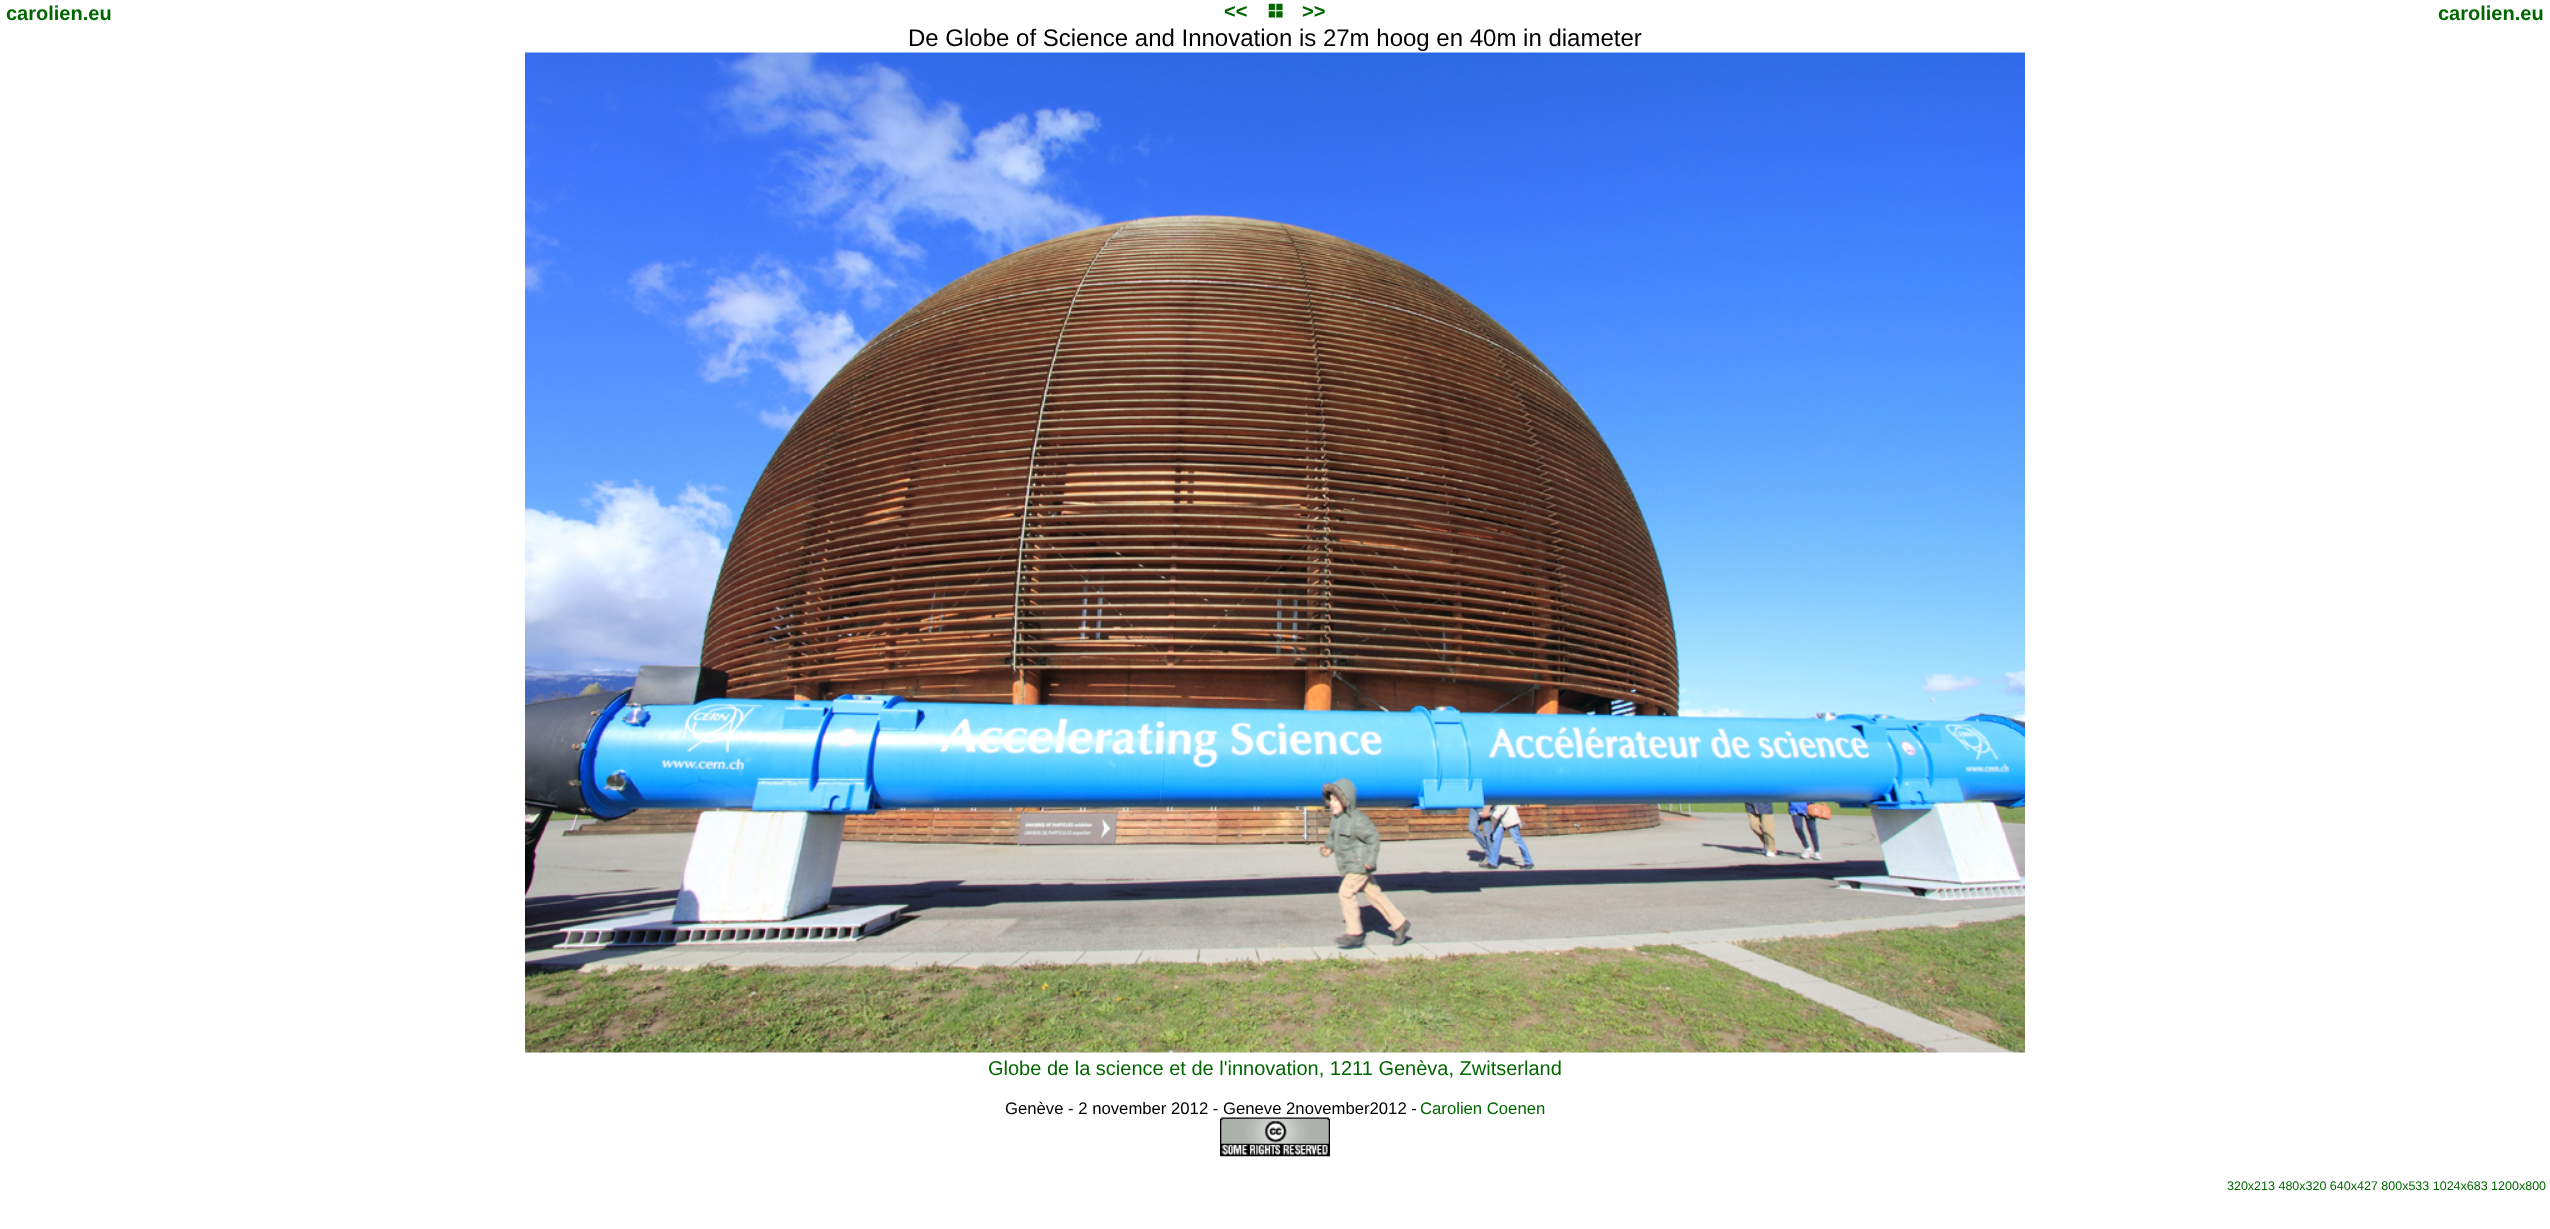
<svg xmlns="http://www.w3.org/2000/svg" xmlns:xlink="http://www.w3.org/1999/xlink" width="2550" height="1229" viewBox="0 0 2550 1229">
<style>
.cls-1{font:bold 20px Liberation Sans;fill:#006600}
.cls-2{font:24px Liberation Sans;fill:#000000}
.cls-3{font:20px Liberation Sans;fill:#006600}
.cls-4{font:16.7px Liberation Sans;fill:#000000}
.cls-5{font:16.7px Liberation Sans;fill:#006600}
.cls-6{font:12.5px Liberation Sans;fill:#006600}
</style>
<rect width="100%" height="100%" fill="#ffffff"/>
<image xlink:href="image0.png" x="1268" y="3" width="15" height="15"/>
<image xlink:href="image1.png" x="525" y="52" width="1500" height="1001"/>
<image xlink:href="image2.png" x="1220" y="1117" width="110" height="40"/>
<text class="cls-1" x="6" y="20">carolien.eu</text>
<text class="cls-1" x="1224" y="18">&lt;&lt;</text>
<text class="cls-1" x="1302" y="18">&gt;&gt;</text>
<text class="cls-1" x="2438" y="20">carolien.eu</text>
<text class="cls-2" x="908" y="46">De Globe of Science and Innovation is 27m hoog en 40m in diameter</text>
<text class="cls-3" x="988" y="1075">Globe de la science et de l'innovation, 1211 Genèva, Zwitserland</text>
<text class="cls-4" x="1005" y="1114">Genève - 2 november 2012 - Geneve 2november2012 -</text>
<text class="cls-5" x="1420" y="1114">Carolien Coenen</text>
<text class="cls-6" x="2227" y="1190">320x213 480x320 640x427 800x533 1024x683 1200x800</text>
</svg>
